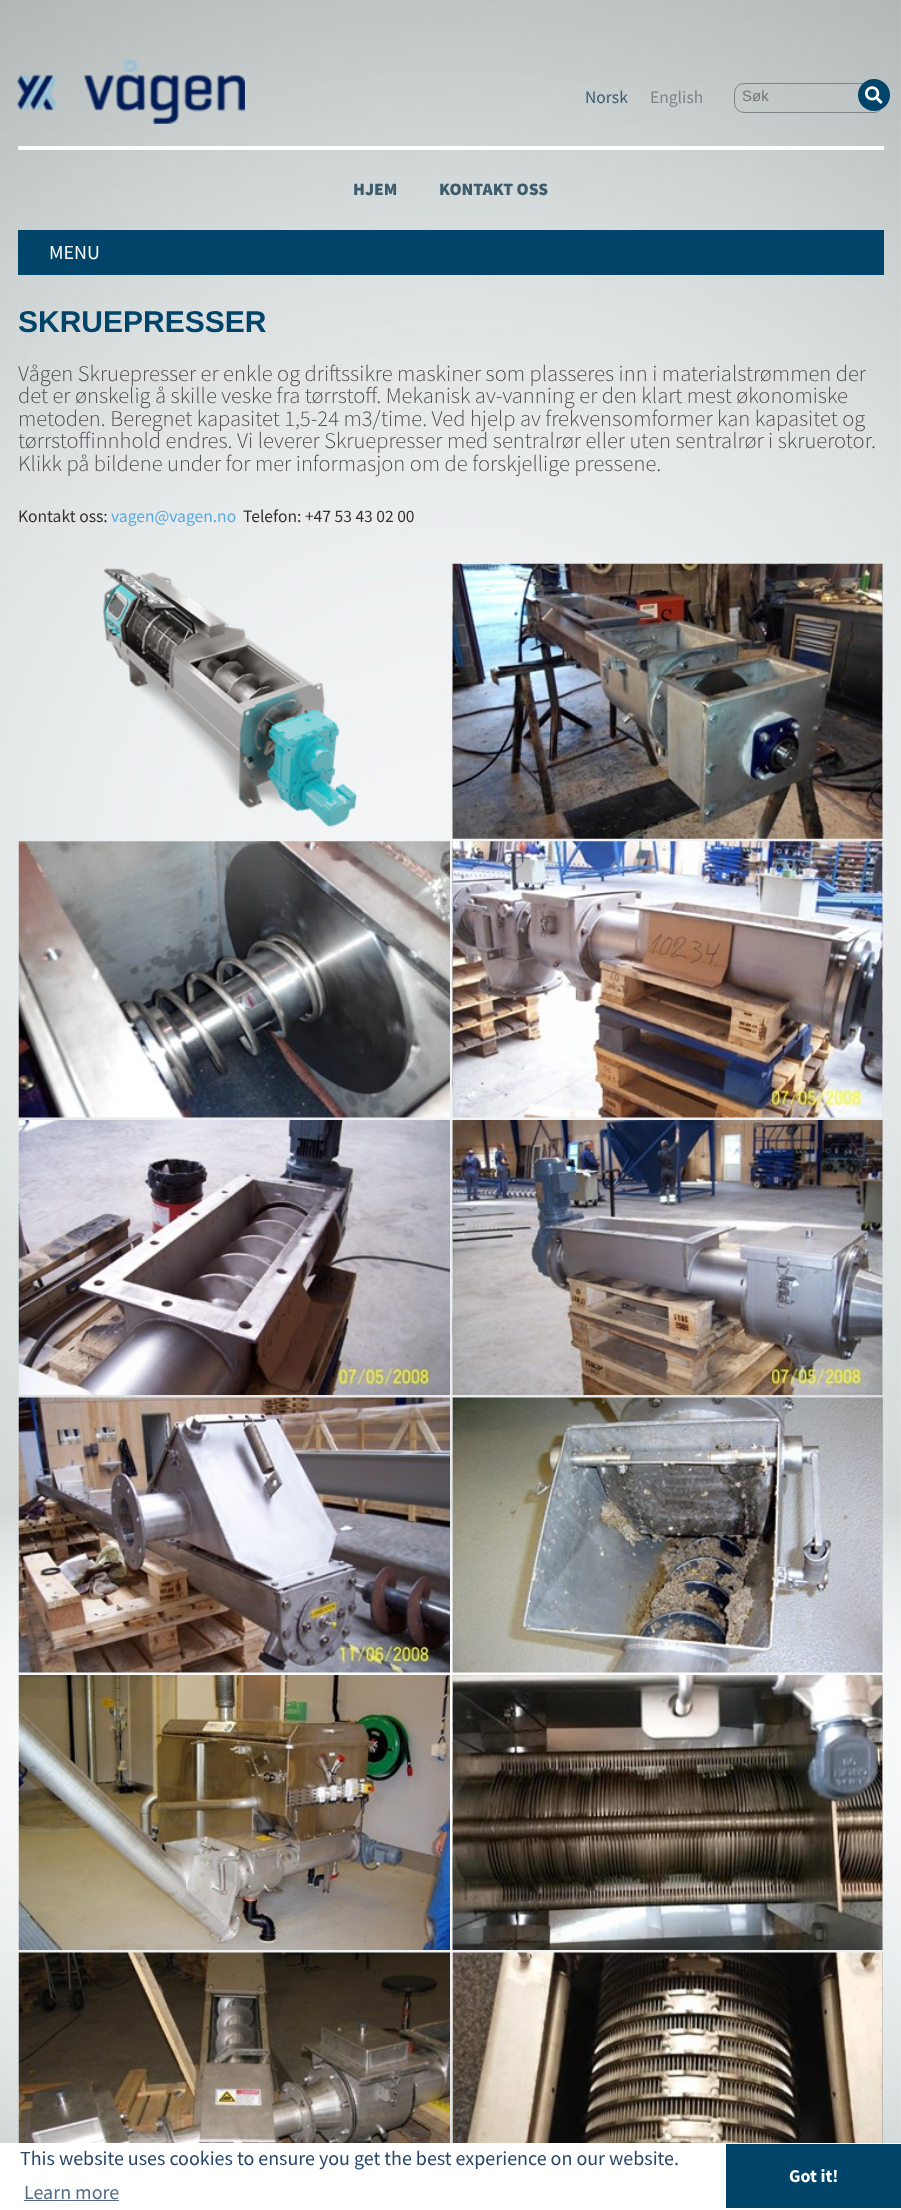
<svg xmlns="http://www.w3.org/2000/svg" xmlns:xlink="http://www.w3.org/1999/xlink" width="901" height="2210" viewBox="0 0 901 2210">
<style>
.cls-1{font:17.5px Source Sans Pro;fill:#3d5c6c}
.cls-2{font:17.5px Source Sans Pro;fill:#808285}
.cls-3{font:15px Liberation Sans;fill:#757575}
.cls-4{font:900 17.5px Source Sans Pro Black;fill:#3d5c6c}
.cls-5{font:20px Source Sans Pro;fill:#ffffff}
.cls-6{font:bold 30px Liberation Sans;fill:#00446a}
.cls-7{font:300 22.5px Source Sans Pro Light;fill:#4d4d4f}
.cls-8{font:17.5px Source Sans Pro;fill:#333333}
.cls-9{font:17.5px Source Sans Pro;fill:#58abdf}
.cls-10{font:20px Source Sans Pro;fill:#274669}
.cls-11{font:20px Source Sans Pro;fill:#526b87}
.cls-12{font:bold 18px Source Sans Pro;fill:#ffffff}
</style>
<rect width="100%" height="100%" fill="#ffffff"/>
<image xlink:href="image0.png" x="0" y="0" width="901" height="2143"/>
<rect fill="#ffffff" x="18" y="146" width="866" height="4"/>
<image xlink:href="image1.png" x="17" y="60" width="228" height="64"/>
<rect fill="none" stroke="#808285" x="734.5" y="83.5" width="149" height="29" rx="9.5"/>
<circle fill="#00446a" cx="874" cy="95" r="16"/>
<image xlink:href="image2.png" x="865" y="86" width="18" height="18"/>
<rect fill="#00446a" x="18" y="230" width="866" height="45"/>
<image xlink:href="image3.png" x="103" y="568" width="254" height="260"/>
<image xlink:href="image4.png" x="452" y="563" width="431" height="276"/>
<image xlink:href="image5.png" x="18" y="841" width="432" height="277"/>
<image xlink:href="image6.png" x="452" y="841" width="431" height="277"/>
<image xlink:href="image7.png" x="18" y="1120" width="432" height="275"/>
<image xlink:href="image8.png" x="452" y="1120" width="431" height="275"/>
<image xlink:href="image9.png" x="18" y="1397" width="432" height="276"/>
<image xlink:href="image10.png" x="452" y="1397" width="431" height="276"/>
<image xlink:href="image11.png" x="18" y="1675" width="432" height="275"/>
<image xlink:href="image12.png" x="452" y="1675" width="431" height="275"/>
<image xlink:href="image13.png" x="18" y="1952" width="432" height="191"/>
<image xlink:href="image14.png" x="452" y="1952" width="431" height="191"/>
<rect fill="#526b87" x="24" y="2200" width="95" height="1"/>
<rect fill="#00446a" x="726" y="2144" width="175" height="64"/>
<text class="cls-1" x="585" y="103">Norsk</text>
<text class="cls-2" x="650" y="103">English</text>
<text class="cls-3" x="742" y="101">Søk</text>
<text class="cls-4" x="353" y="195">HJEM</text>
<text class="cls-4" x="439" y="195">KONTAKT OSS</text>
<text class="cls-5" x="49" y="259">MENU</text>
<text class="cls-6" x="18" y="332">SKRUEPRESSER</text>
<text class="cls-7"><tspan x="18" y="381">Vågen Skruepresser er enkle og driftssikre maskiner som plasseres inn i materialstrømmen der</tspan><tspan x="18" y="403">det er ønskelig å skille veske fra tørrstoff. Mekanisk av-vanning er den klart mest økonomiske</tspan><tspan x="18" y="426">metoden. Beregnet kapasitet 1,5-24 m3/time. Ved hjelp av frekvensomformer kan kapasitet og</tspan><tspan x="18" y="448">tørrstoffinnhold endres. Vi leverer Skruepresser med sentralrør eller uten sentralrør i skruerotor.</tspan><tspan x="18" y="471">Klikk på bildene under for mer informasjon om de forskjellige pressene.</tspan></text>
<text class="cls-8" x="18" y="522">Kontakt oss:</text>
<text class="cls-9" x="111" y="522">vagen@vagen.no</text>
<text class="cls-8" x="243" y="522">Telefon: +47 53 43 02 00</text>
<text class="cls-10" x="20" y="2165">This website uses cookies to ensure you get the best experience on our website.</text>
<text class="cls-11" x="24" y="2199">Learn more</text>
<text class="cls-12" x="789" y="2182">Got it!</text>
</svg>
